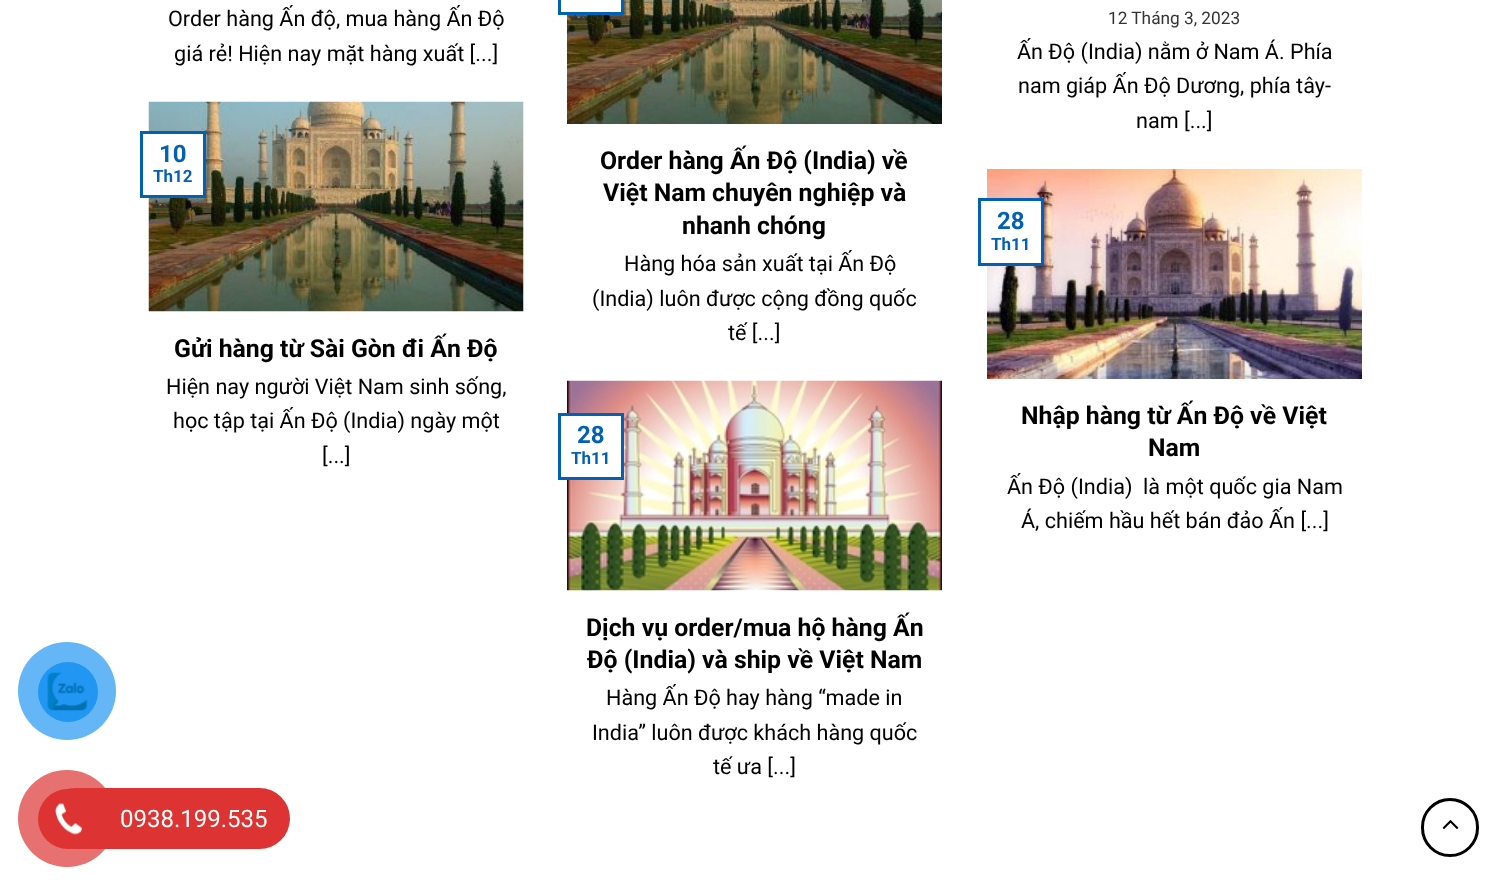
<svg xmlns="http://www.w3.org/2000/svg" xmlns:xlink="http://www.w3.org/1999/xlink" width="1512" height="886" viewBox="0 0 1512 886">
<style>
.cls-1{font:21.6px Roboto;fill:#000000}
.cls-2{font:17.25px Roboto;fill:#333333}
.cls-3{font:bold 24px Roboto;fill:#0261b4}
.cls-4{font:bold 17px Roboto;fill:#0261b4}
.cls-5{font:bold 24.8px Roboto;fill:#000000}
.cls-6{font:24px Roboto;fill:#ffffff}
</style>
<rect width="100%" height="100%" fill="#ffffff"/>
<image xlink:href="image0.png" x="148" y="101" width="376" height="211"/>
<rect fill="#ffffff" x="148" y="134" width="55" height="61"/>
<rect fill="none" stroke="#0261b4" stroke-width="3" x="141.5" y="132.5" width="63" height="64"/>
<image xlink:href="image1.png" x="567" y="0" width="375" height="124"/>
<rect fill="#ffffff" x="567" y="0" width="54" height="12"/>
<rect fill="none" stroke="#0261b4" stroke-width="3" x="559.5" y="-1.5" width="63" height="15"/>
<image xlink:href="image2.png" x="987" y="169" width="375" height="210"/>
<rect fill="#ffffff" x="987" y="201" width="54" height="62"/>
<rect fill="none" stroke="#0261b4" stroke-width="3" x="979.5" y="199.5" width="63" height="65"/>
<image xlink:href="image3.png" x="567" y="380" width="375" height="211"/>
<rect fill="#ffffff" x="567" y="416" width="54" height="61"/>
<rect fill="none" stroke="#0261b4" stroke-width="3" x="559.5" y="414.5" width="63" height="64"/>
<rect fill="none" stroke="#000000" stroke-width="3" x="1422.5" y="799.5" width="55" height="56" rx="27.5"/>
<image xlink:href="image4.png" x="1442" y="820" width="17" height="9"/>
<circle fill="#64b6f7" cx="67" cy="691" r="49"/>
<circle fill="#2196f3" cx="68" cy="692" r="30"/>
<image xlink:href="image5.png" x="47" y="672" width="41" height="39"/>
<rect fill="#dd3333" x="45" y="788" width="245" height="61" rx="30.5"/>
<rect fill="#dd3333" fill-opacity="0.7" x="18" y="770" width="98" height="97" rx="48.5"/>
<circle fill="#dd3333" cx="68" cy="819" r="30"/>
<image xlink:href="image6.png" x="55" y="803" width="27" height="32"/>
<text class="cls-1" x="168" y="26">Order hàng Ấn độ, mua hàng Ấn Độ</text>
<text class="cls-1" x="174" y="61">giá rẻ! Hiện nay mặt hàng xuất [...]</text>
<text class="cls-2" x="1108" y="24">12 Tháng 3, 2023</text>
<text class="cls-1" x="1017" y="59">Ấn Độ (India) nằm ở Nam Á. Phía</text>
<text class="cls-1" x="1018" y="93">nam giáp Ấn Độ Dương, phía tây-</text>
<text class="cls-1" x="1136" y="128">nam [...]</text>
<text class="cls-3" x="159" y="162">10</text>
<text class="cls-4" x="153" y="182">Th12</text>
<text class="cls-5" x="174" y="357">Gửi hàng từ Sài Gòn đi Ấn Độ</text>
<text class="cls-1" x="166" y="394">Hiện nay người Việt Nam sinh sống,</text>
<text class="cls-1" x="173" y="428">học tập tại Ấn Độ (India) ngày một</text>
<text class="cls-1" x="322" y="463">[...]</text>
<text class="cls-5" x="600" y="169">Order hàng Ấn Độ (India) về</text>
<text class="cls-5" x="603" y="201">Việt Nam chuyên nghiệp và</text>
<text class="cls-5" x="682" y="234">nhanh chóng</text>
<text class="cls-1" x="624" y="271">Hàng hóa sản xuất tại Ấn Độ</text>
<text class="cls-1" x="592" y="306">(India) luôn được cộng đồng quốc</text>
<text class="cls-1" x="728" y="340">tế [...]</text>
<text class="cls-3" x="997" y="229">28</text>
<text class="cls-4" x="991" y="250">Th11</text>
<text class="cls-5" x="1021" y="424">Nhập hàng từ Ấn Độ về Việt</text>
<text class="cls-5" x="1148" y="456">Nam</text>
<text class="cls-1" xml:space="preserve" x="1007" y="494">Ấn Độ (India)  là một quốc gia Nam</text>
<text class="cls-1" x="1021" y="528">Á, chiếm hầu hết bán đảo Ấn [...]</text>
<text class="cls-3" x="577" y="443">28</text>
<text class="cls-4" x="571" y="464">Th11</text>
<text class="cls-5" x="586" y="636">Dịch vụ order/mua hộ hàng Ấn</text>
<text class="cls-5" x="587" y="668">Độ (India) và ship về Việt Nam</text>
<text class="cls-1" x="606" y="705">Hàng Ấn Độ hay hàng “made in</text>
<text class="cls-1" x="592" y="740">India” luôn được khách hàng quốc</text>
<text class="cls-1" x="713" y="774">tế ưa [...]</text>
<text class="cls-6" x="120" y="827">0938.199.535</text>
</svg>
